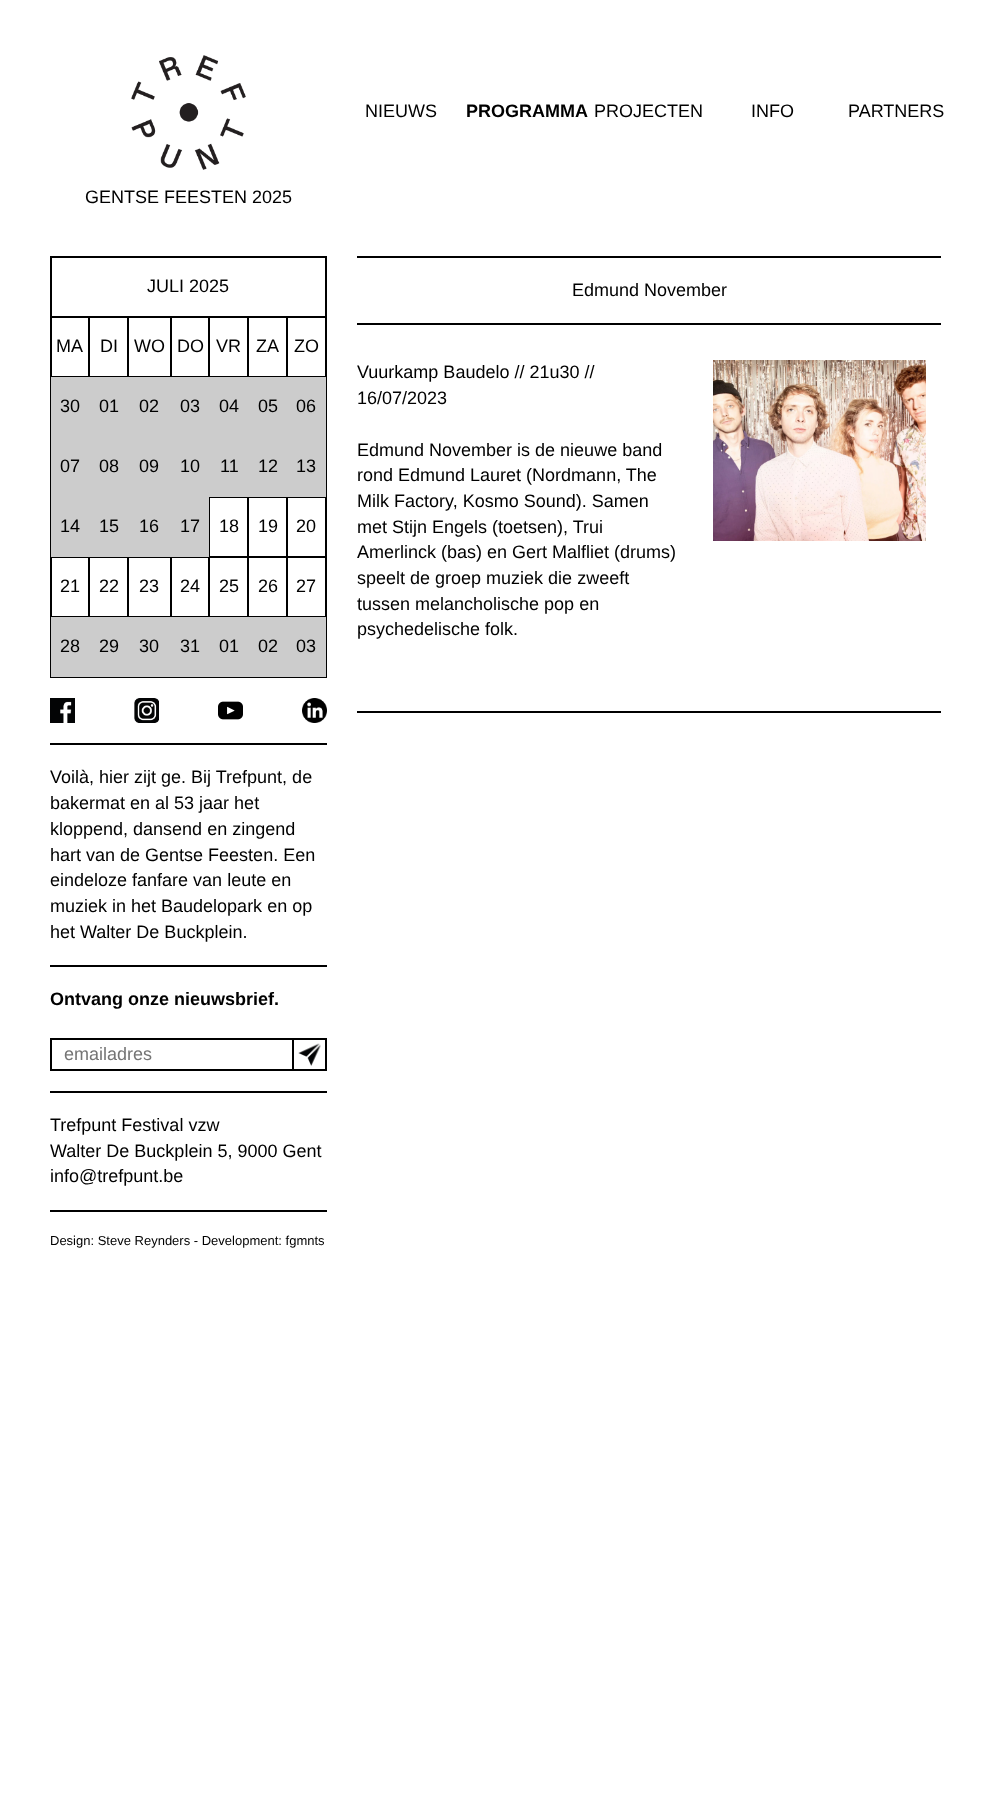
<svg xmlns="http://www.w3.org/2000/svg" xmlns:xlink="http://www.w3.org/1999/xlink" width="991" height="1816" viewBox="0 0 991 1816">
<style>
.cls-1{font:18px Liberation Sans;fill:#000000}
.cls-2{font:bold 18px Liberation Sans;fill:#000000}
.cls-3{font:18px Liberation Sans;fill:#757575}
.cls-4{font:13px Liberation Sans;fill:#000000}
</style>
<rect width="100%" height="100%" fill="#ffffff"/>
<image xlink:href="image0.png" x="131" y="55" width="115" height="115"/>
<rect fill="#000000" x="50" y="256" width="277" height="2"/>
<rect fill="#000000" x="286" y="316" width="41" height="2"/>
<rect fill="#000000" x="50" y="376" width="277" height="1"/>
<rect fill="#000000" x="286" y="497" width="41" height="1"/>
<rect fill="#000000" x="286" y="556" width="41" height="2"/>
<rect fill="#000000" x="50" y="616" width="277" height="1"/>
<rect fill="#000000" x="326" y="616" width="1" height="62"/>
<rect fill="#000000" x="325" y="556" width="2" height="62"/>
<rect fill="#000000" x="325" y="436" width="2" height="122"/>
<rect fill="#000000" x="326" y="376" width="1" height="62"/>
<rect fill="#000000" x="325" y="316" width="2" height="62"/>
<rect fill="#000000" x="325" y="256" width="2" height="62"/>
<rect fill="#000000" x="286" y="316" width="2" height="62"/>
<rect fill="#000000" x="247" y="316" width="41" height="2"/>
<rect fill="#000000" x="247" y="316" width="2" height="62"/>
<rect fill="#000000" x="208" y="316" width="41" height="2"/>
<rect fill="#000000" x="208" y="316" width="2" height="62"/>
<rect fill="#000000" x="170" y="316" width="40" height="2"/>
<rect fill="#000000" x="170" y="316" width="2" height="62"/>
<rect fill="#000000" x="127" y="316" width="45" height="2"/>
<rect fill="#000000" x="127" y="316" width="2" height="62"/>
<rect fill="#000000" x="88" y="316" width="41" height="2"/>
<rect fill="#000000" x="88" y="316" width="2" height="62"/>
<rect fill="#000000" x="50" y="316" width="40" height="2"/>
<rect fill="#000000" x="286" y="556" width="2" height="62"/>
<rect fill="#000000" x="247" y="556" width="41" height="2"/>
<rect fill="#000000" x="247" y="556" width="2" height="62"/>
<rect fill="#000000" x="208" y="556" width="41" height="2"/>
<rect fill="#000000" x="208" y="556" width="2" height="62"/>
<rect fill="#000000" x="170" y="557" width="40" height="1"/>
<rect fill="#000000" x="170" y="556" width="2" height="62"/>
<rect fill="#000000" x="127" y="557" width="45" height="1"/>
<rect fill="#000000" x="127" y="556" width="2" height="62"/>
<rect fill="#000000" x="88" y="557" width="41" height="1"/>
<rect fill="#000000" x="88" y="556" width="2" height="62"/>
<rect fill="#000000" x="50" y="557" width="40" height="1"/>
<rect fill="#000000" x="286" y="676" width="41" height="2"/>
<rect fill="#000000" x="50" y="677" width="238" height="1"/>
<rect fill="#000000" x="50" y="616" width="2" height="62"/>
<rect fill="#000000" x="50" y="496" width="2" height="122"/>
<rect fill="#000000" x="50" y="436" width="1" height="62"/>
<rect fill="#000000" x="50" y="376" width="1" height="62"/>
<rect fill="#000000" x="50" y="316" width="2" height="62"/>
<rect fill="#000000" x="50" y="256" width="2" height="62"/>
<rect fill="#cccccc" x="51" y="377" width="275" height="60"/>
<rect fill="#000000" x="286" y="496" width="2" height="62"/>
<rect fill="#000000" x="247" y="497" width="41" height="1"/>
<rect fill="#000000" x="247" y="496" width="2" height="62"/>
<rect fill="#000000" x="208" y="497" width="41" height="1"/>
<rect fill="#000000" x="208" y="496" width="2" height="62"/>
<rect fill="#cccccc" x="51" y="437" width="275" height="60"/>
<rect fill="#cccccc" x="51" y="497" width="158" height="60"/>
<rect fill="#cccccc" x="51" y="617" width="275" height="60"/>
<image xlink:href="image1.png" x="50" y="698" width="25" height="25"/>
<image xlink:href="image2.png" x="134" y="698" width="25" height="25"/>
<image xlink:href="image3.png" x="218" y="701" width="25" height="19"/>
<image xlink:href="image4.png" x="302" y="698" width="25" height="25"/>
<rect fill="#000000" x="50" y="743" width="277" height="2"/>
<rect fill="#000000" x="50" y="965" width="277" height="2"/>
<rect fill="none" stroke="#000000" stroke-width="2" x="51" y="1039" width="242" height="31"/>
<image xlink:href="image5.png" x="298" y="1043" width="23" height="23"/>
<rect fill="#000000" x="294" y="1038" width="33" height="2"/>
<rect fill="#000000" x="325" y="1038" width="2" height="33"/>
<rect fill="#000000" x="294" y="1069" width="33" height="2"/>
<rect fill="#000000" x="50" y="1091" width="277" height="2"/>
<rect fill="#000000" x="50" y="1210" width="277" height="2"/>
<rect fill="#000000" x="357" y="256" width="584" height="2"/>
<rect fill="#000000" x="357" y="323" width="584" height="2"/>
<image xlink:href="image6.png" x="713" y="360" width="213" height="181"/>
<rect fill="#000000" x="357" y="711" width="584" height="2"/>
<text class="cls-1" x="365" y="117">NIEUWS</text>
<text class="cls-2" x="466" y="117">PROGRAMMA</text>
<text class="cls-1" x="594" y="117">PROJECTEN</text>
<text class="cls-1" x="751" y="117">INFO</text>
<text class="cls-1" x="848" y="117">PARTNERS</text>
<text class="cls-1" x="85" y="203">GENTSE FEESTEN 2025</text>
<text class="cls-1" x="147" y="292">JULI 2025</text>
<text class="cls-1" x="56" y="352">MA</text>
<text class="cls-1" x="100" y="352">DI</text>
<text class="cls-1" x="134" y="352">WO</text>
<text class="cls-1" x="177" y="352">DO</text>
<text class="cls-1" x="216" y="352">VR</text>
<text class="cls-1" x="256" y="352">ZA</text>
<text class="cls-1" x="294" y="352">ZO</text>
<text class="cls-1" x="60" y="412">30</text>
<text class="cls-1" x="99" y="412">01</text>
<text class="cls-1" x="139" y="412">02</text>
<text class="cls-1" x="180" y="412">03</text>
<text class="cls-1" x="219" y="412">04</text>
<text class="cls-1" x="258" y="412">05</text>
<text class="cls-1" x="296" y="412">06</text>
<text class="cls-1" x="60" y="472">07</text>
<text class="cls-1" x="99" y="472">08</text>
<text class="cls-1" x="139" y="472">09</text>
<text class="cls-1" x="180" y="472">10</text>
<text class="cls-1" x="220" y="472">11</text>
<text class="cls-1" x="258" y="472">12</text>
<text class="cls-1" x="296" y="472">13</text>
<text class="cls-1" x="60" y="532">14</text>
<text class="cls-1" x="99" y="532">15</text>
<text class="cls-1" x="139" y="532">16</text>
<text class="cls-1" x="180" y="532">17</text>
<text class="cls-1" x="219" y="532">18</text>
<text class="cls-1" x="258" y="532">19</text>
<text class="cls-1" x="296" y="532">20</text>
<text class="cls-1" x="60" y="592">21</text>
<text class="cls-1" x="99" y="592">22</text>
<text class="cls-1" x="139" y="592">23</text>
<text class="cls-1" x="180" y="592">24</text>
<text class="cls-1" x="219" y="592">25</text>
<text class="cls-1" x="258" y="592">26</text>
<text class="cls-1" x="296" y="592">27</text>
<text class="cls-1" x="60" y="652">28</text>
<text class="cls-1" x="99" y="652">29</text>
<text class="cls-1" x="139" y="652">30</text>
<text class="cls-1" x="180" y="652">31</text>
<text class="cls-1" x="219" y="652">01</text>
<text class="cls-1" x="258" y="652">02</text>
<text class="cls-1" x="296" y="652">03</text>
<text class="cls-1"><tspan x="50" y="783">Voilà, hier zijt ge. Bij Trefpunt, de</tspan><tspan x="50" y="809">bakermat en al 53 jaar het</tspan><tspan x="50" y="835">kloppend, dansend en zingend</tspan><tspan x="50" y="861">hart van de Gentse Feesten. Een</tspan><tspan x="50" y="886">eindeloze fanfare van leute en</tspan><tspan x="50" y="912">muziek in het Baudelopark en op</tspan><tspan x="50" y="938">het Walter De Buckplein.</tspan></text>
<text class="cls-2" x="50" y="1005">Ontvang onze nieuwsbrief.</text>
<text class="cls-3" x="64" y="1060">emailadres</text>
<text class="cls-1"><tspan x="50" y="1131">Trefpunt Festival vzw</tspan><tspan x="50" y="1157">Walter De Buckplein 5, 9000 Gent</tspan><tspan x="50" y="1182">info@trefpunt.be</tspan></text>
<text class="cls-4" x="50" y="1245">Design: Steve Reynders - Development: fgmnts</text>
<text class="cls-1" x="572" y="296">Edmund November</text>
<text class="cls-1"><tspan x="357" y="378">Vuurkamp Baudelo // 21u30 //</tspan><tspan x="357" y="404">16/07/2023</tspan></text>
<text class="cls-1"><tspan x="357" y="456">Edmund November is de nieuwe band</tspan><tspan x="357" y="481">rond Edmund Lauret (Nordmann, The</tspan><tspan x="357" y="507">Milk Factory, Kosmo Sound). Samen</tspan><tspan x="357" y="533">met Stijn Engels (toetsen), Trui</tspan><tspan x="357" y="558">Amerlinck (bas) en Gert Malfliet (drums)</tspan><tspan x="357" y="584">speelt de groep muziek die zweeft</tspan><tspan x="357" y="610">tussen melancholische pop en</tspan><tspan x="357" y="635">psychedelische folk.</tspan></text>
</svg>
